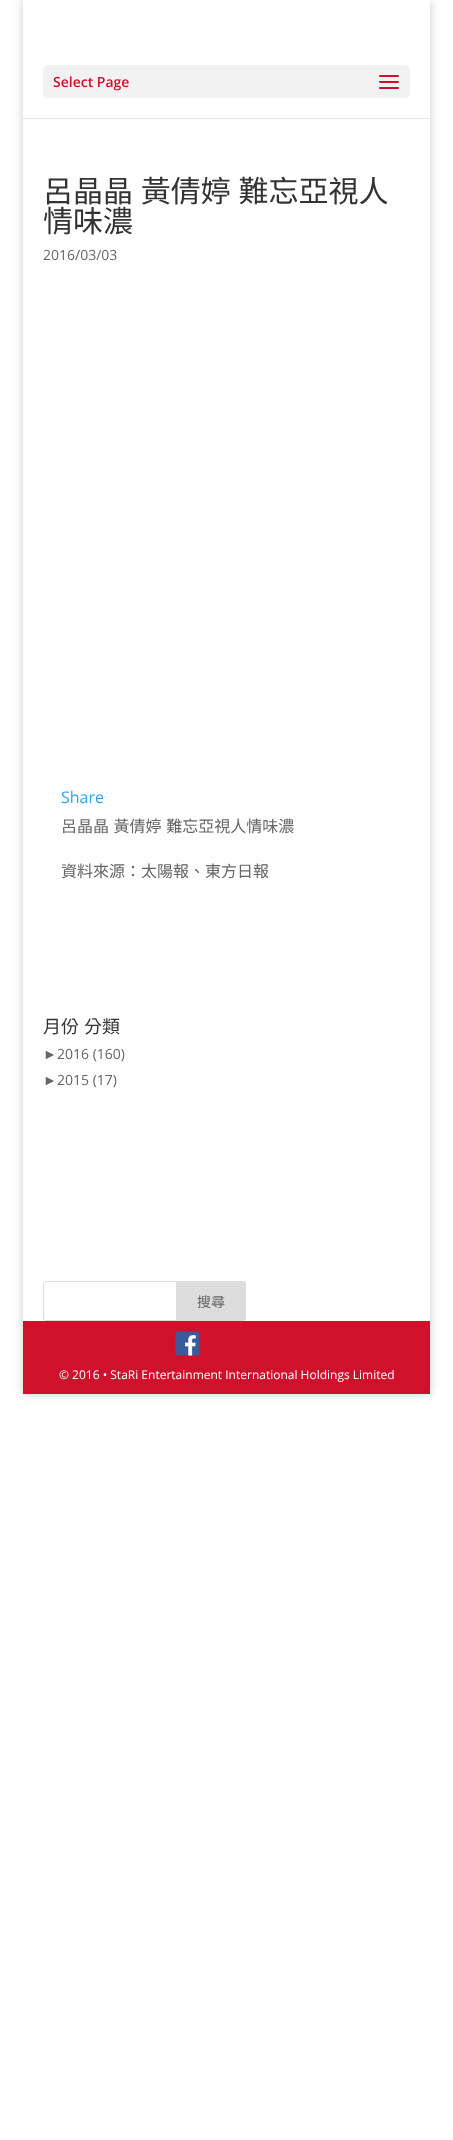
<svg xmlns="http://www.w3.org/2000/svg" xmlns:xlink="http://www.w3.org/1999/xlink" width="453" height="2140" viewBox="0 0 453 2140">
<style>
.cls-1{font:600 14px Open Sans;fill:#cf112b}
.cls-2{font:30px Noto Sans CJK TC;fill:#333333}
.cls-3{font:14px Open Sans;fill:#666666}
.cls-4{font:16px Open Sans;fill:#2ea3f2}
.cls-5{font:16px Noto Sans CJK TC;fill:#666666}
.cls-6{font:18px Noto Sans CJK TC;fill:#333333}
.cls-7{font:14px Liberation Sans;fill:#666666}
.cls-8{font:14px Noto Sans CJK TC;fill:#666666}
.cls-9{font:12px Open Sans;fill:#ffffff}
</style>
<defs>
<clipPath id="clip1"><path d="M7 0H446V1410H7ZM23 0H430V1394H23Z" clip-rule="evenodd"/></clipPath>
</defs>
<rect width="100%" height="100%" fill="#ffffff"/>
<g clip-path="url(#clip1)">
<rect fill="#000000" fill-opacity="0.2" filter="blur(5px)" x="23" y="0" width="407" height="1394"/>
</g>
<rect fill="#e6e6e6" x="23" y="118" width="407" height="1"/>
<rect fill="#f2f2f2" x="43" y="65" width="367" height="33" rx="5"/>
<image xlink:href="image0.png" x="379" y="75" width="20" height="14"/>
<rect fill="none" stroke="#dddddd" x="43.5" y="1281.5" width="202" height="39" rx="2.5"/>
<path fill="#dddddd" stroke="#dddddd" d="M176.5 1281.5H243C244.5 1281.5 245.5 1282.5 245.5 1284V1318C245.5 1319.5 244.5 1320.5 243 1320.5H176.5Z"/>
<rect fill="#cf112b" x="23" y="1321" width="407" height="73"/>
<image xlink:href="image1.png" x="175" y="1331" width="25" height="25"/>
<text class="cls-1" x="53" y="87">Select Page</text>
<text class="cls-2"><tspan x="43" y="202" word-spacing="1">呂晶晶 黃倩婷 難忘亞視人</tspan><tspan x="43" y="232">情味濃</tspan></text>
<text class="cls-3" x="43" y="260">2016/03/03</text>
<text class="cls-4" x="61" y="803">Share</text>
<text class="cls-5" x="61" y="832" word-spacing="1">呂晶晶 黃倩婷 難忘亞視人情味濃</text>
<text class="cls-5" x="61" y="877">資料來源：太陽報、東方日報</text>
<text class="cls-6" x="43" y="1033" word-spacing="1">月份 分類</text>
<text class="cls-7" x="43" y="1059">►</text>
<text class="cls-3" x="57" y="1059">2016 (160)</text>
<text class="cls-7" x="43" y="1085">►</text>
<text class="cls-3" x="57" y="1085">2015 (17)</text>
<text class="cls-8" x="197" y="1307">搜尋</text>
<text class="cls-9" x="59" y="1379">© 2016 • StaRi Entertainment International Holdings Limited</text>
</svg>
